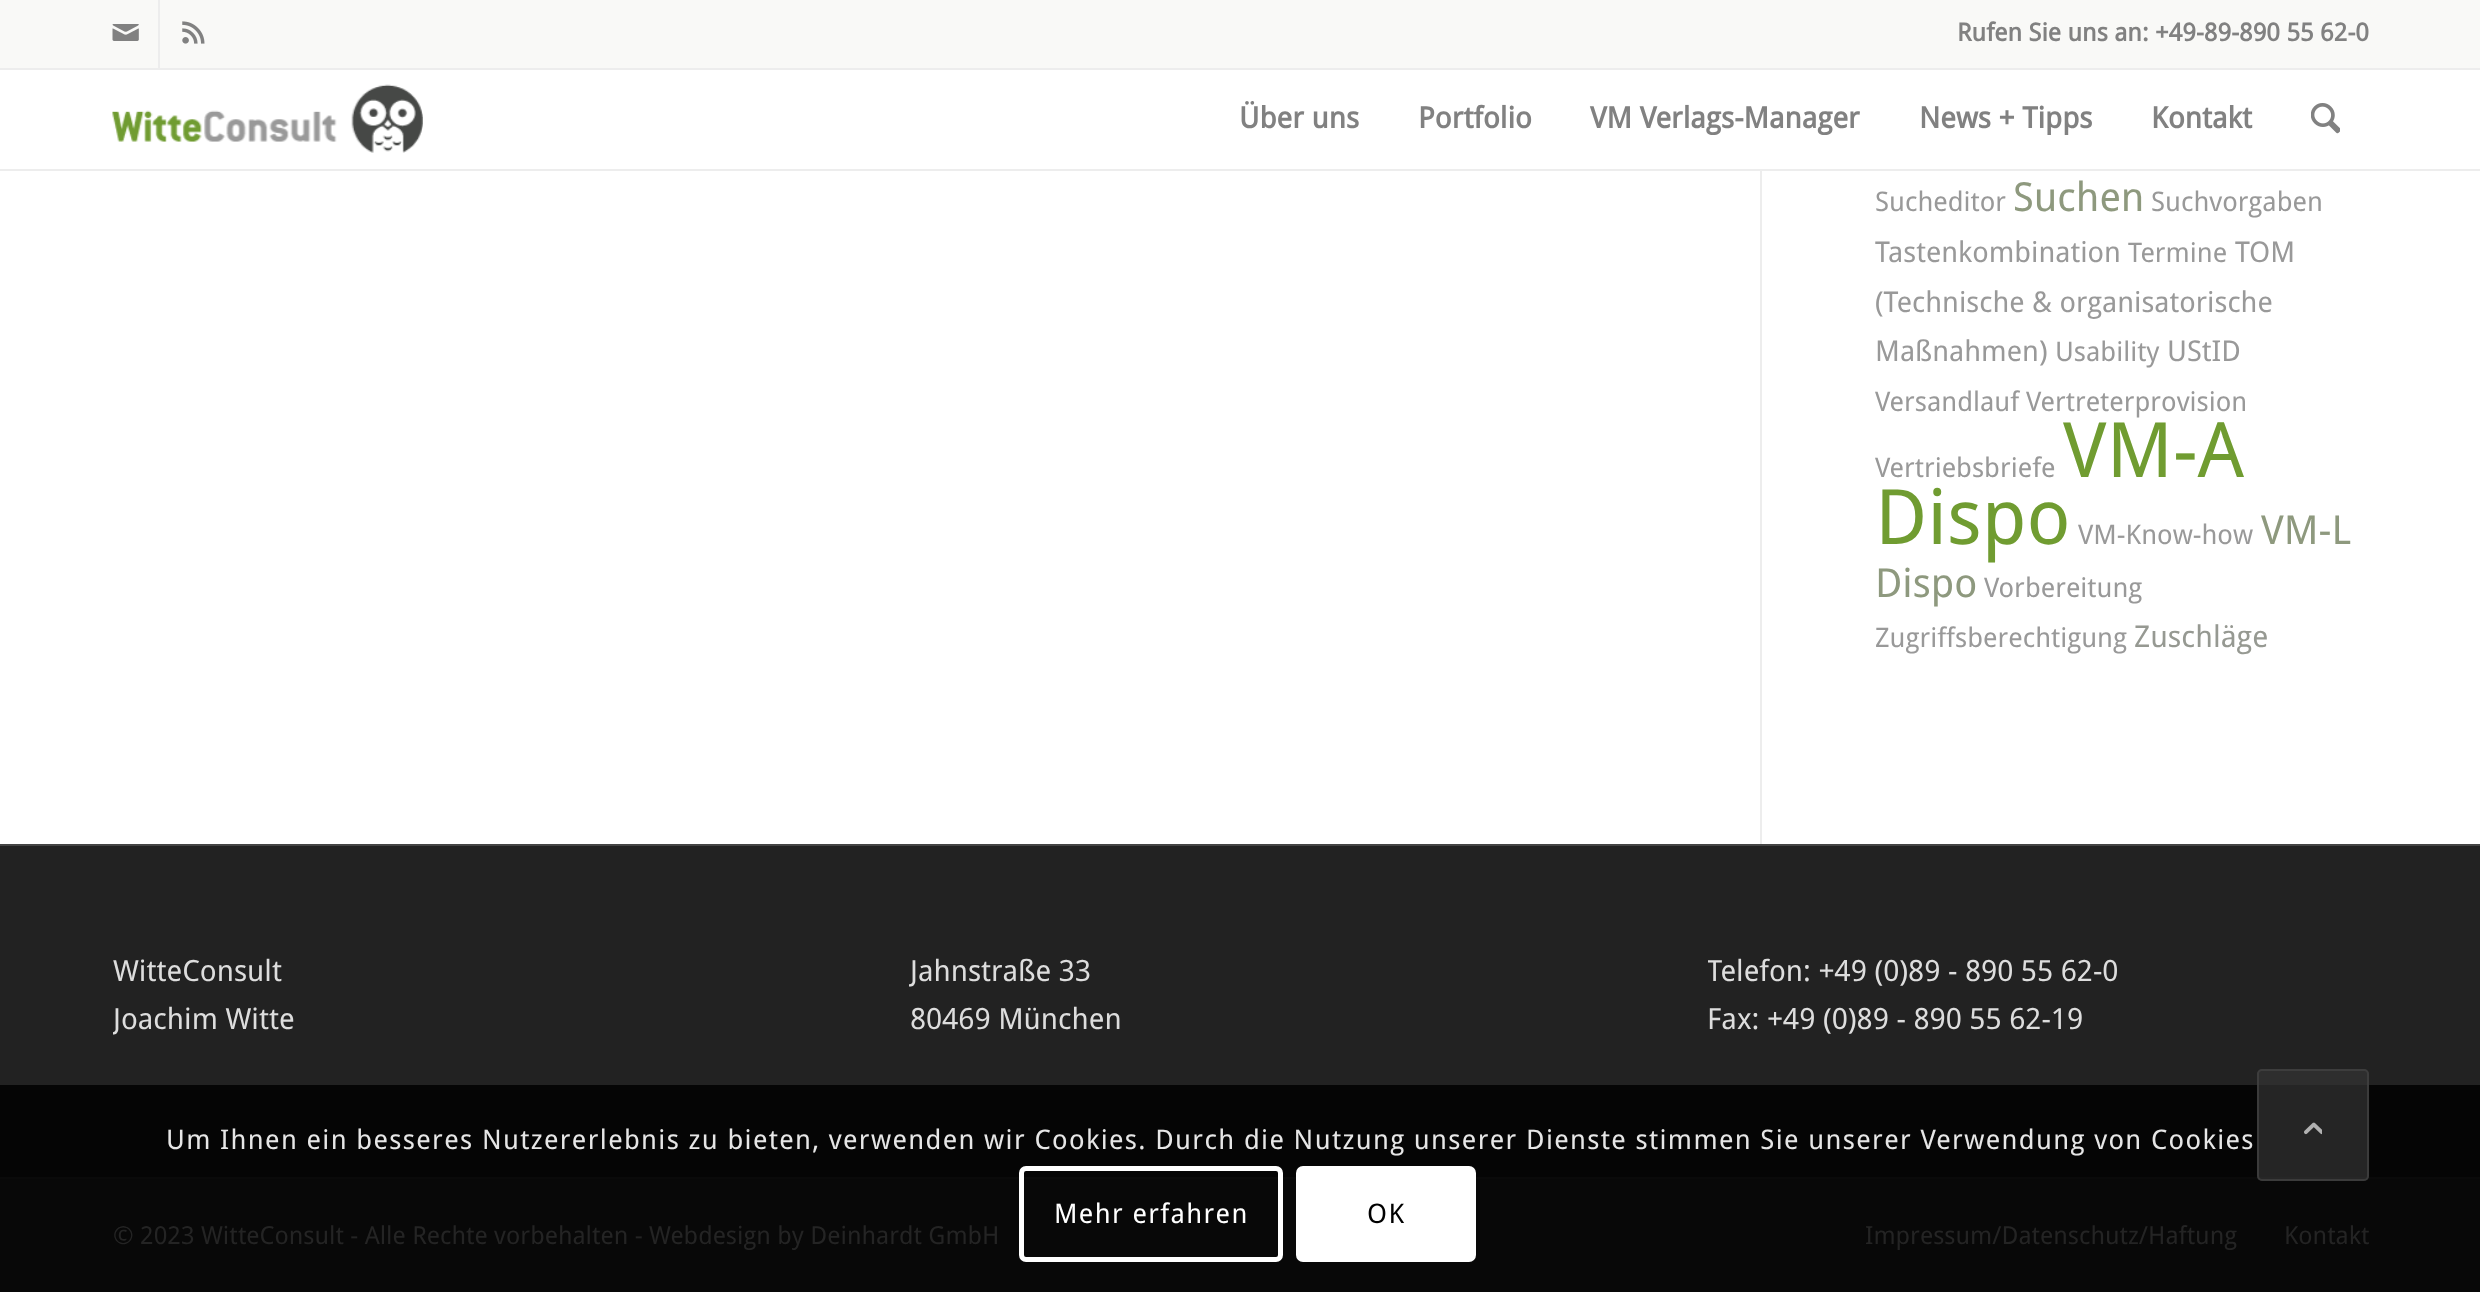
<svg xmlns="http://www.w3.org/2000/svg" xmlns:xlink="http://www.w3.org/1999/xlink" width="2480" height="1292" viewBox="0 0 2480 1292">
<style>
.cls-1{font:bold 24.75px Droid Sans;fill:#818181}
.cls-2{font:bold 29.25px Droid Sans;fill:#818181}
.cls-3{font:27px Droid Sans;fill:#999999}
.cls-4{font:40px Droid Sans;fill:#8e997e}
.cls-5{font:28.6px Droid Sans;fill:#999999}
.cls-6{font:76.5px Droid Sans;fill:#709c31}
.cls-7{font:30px Droid Sans;fill:#969992}
.cls-8{font:29.25px Droid Sans;fill:#dddddd}
.cls-9{font:24.75px Droid Sans;fill:#242424}
.cls-10{font:27px Droid Sans;letter-spacing:1.35px;fill:#e6e6e6}
.cls-11{font:27px Droid Sans;letter-spacing:1.35px;fill:#ffffff}
.cls-12{font:27px Droid Sans;letter-spacing:1.35px;fill:#000000}
</style>
<defs>
<clipPath id="clip1"><rect x="113" y="947" width="661" height="97"/></clipPath>
<clipPath id="clip2"><rect x="909" y="947" width="664" height="97"/></clipPath>
<clipPath id="clip3"><rect x="1708" y="947" width="661" height="97"/></clipPath>
</defs>
<rect width="100%" height="100%" fill="#ffffff"/>
<rect fill="#f9f9f7" x="0" y="0" width="2480" height="68"/>
<rect fill="#ededed" x="0" y="68" width="2480" height="2"/>
<rect fill="#ededed" x="158" y="0" width="2" height="68"/>
<image xlink:href="image0.png" x="112" y="24" width="27" height="17"/>
<image xlink:href="image1.png" x="182" y="21" width="23" height="23"/>
<rect fill="#ededed" x="0" y="169" width="2480" height="2"/>
<image xlink:href="image2.png" x="112" y="84" width="311" height="69"/>
<image xlink:href="image3.png" x="2311" y="103" width="29" height="31"/>
<rect fill="#ededed" x="1760" y="171" width="2" height="673"/>
<rect fill="#222222" x="0" y="846" width="2480" height="239"/>
<rect fill="#050505" x="0" y="1085" width="2480" height="92"/>
<rect fill="#444444" x="0" y="844" width="2480" height="2"/>
<rect fill="#080808" x="0" y="1179" width="2480" height="113"/>
<rect fill="#0a0a0a" x="0" y="1177" width="2480" height="2"/>
<rect fill="none" stroke="#ffffff" stroke-width="5" x="1021.5" y="1168.5" width="259" height="91" rx="4.5"/>
<rect fill="#ffffff" x="1296" y="1166" width="180" height="96" rx="7"/>
<rect fill="#333333" fill-opacity="0.7" x="2257" y="1069" width="112" height="112" rx="5"/>
<rect fill="none" stroke="#444444" stroke-opacity="0.7" stroke-width="2" x="2258" y="1070" width="110" height="110" rx="4"/>
<image xlink:href="image4.png" x="2304" y="1122" width="18" height="13"/>
<text class="cls-1" x="1957" y="41">Rufen Sie uns an: +49-89-890 55 62-0</text>
<text class="cls-2" x="1239" y="128">Über uns</text>
<text class="cls-2" x="1418" y="128">Portfolio</text>
<text class="cls-2" x="1590" y="128">VM Verlags-Manager</text>
<text class="cls-2" x="1919" y="128">News + Tipps</text>
<text class="cls-2" x="2151" y="128">Kontakt</text>
<text class="cls-3" x="1875" y="211">Sucheditor</text>
<text class="cls-4" x="2013" y="211">Suchen</text>
<text class="cls-3" x="2151" y="211">Suchvorgaben</text>
<text class="cls-5" x="1875" y="262">Tastenkombination</text>
<text class="cls-3" x="2128" y="262">Termine</text>
<text class="cls-5" x="2235" y="262">TOM</text>
<text class="cls-5"><tspan x="1875" y="312">(Technische &amp; organisatorische</tspan><tspan x="1875" y="361">Maßnahmen)</tspan></text>
<text class="cls-3" x="2055" y="361">Usability</text>
<text class="cls-5" x="2167" y="361">UStID</text>
<text class="cls-3" x="1875" y="411">Versandlauf</text>
<text class="cls-3" x="2026" y="411">Vertreterprovision</text>
<text class="cls-3" x="1875" y="477">Vertriebsbriefe</text>
<text class="cls-6" x="2063" y="477">VM-A</text>
<text class="cls-6" x="1875" y="544">Dispo</text>
<text class="cls-3" x="2078" y="544">VM-Know-how</text>
<text class="cls-4" x="2261" y="544">VM-L</text>
<text class="cls-4" x="1875" y="597">Dispo</text>
<text class="cls-3" x="1984" y="597">Vorbereitung</text>
<text class="cls-3" x="1875" y="647">Zugriffsberechtigung</text>
<text class="cls-7" x="2134" y="647">Zuschläge</text>
<text class="cls-8" x="113" y="981">WitteConsult</text>
<g clip-path="url(#clip1)">
<text class="cls-8" x="113" y="1029">Joachim Witte</text>
</g>
<g clip-path="url(#clip2)">
<text class="cls-8" x="910" y="981">Jahnstraße 33</text>
</g>
<text class="cls-8" x="910" y="1029">80469 München</text>
<g clip-path="url(#clip3)">
<text class="cls-8" x="1707" y="981">Telefon: +49 (0)89 - 890 55 62-0</text>
</g>
<text class="cls-8" x="1707" y="1029">Fax: +49 (0)89 - 890 55 62-19</text>
<text class="cls-9" x="113" y="1244">© 2023 WitteConsult - Alle Rechte vorbehalten -</text>
<text class="cls-9" x="649" y="1244">Webdesign by Deinhardt GmbH</text>
<text class="cls-9" x="1865" y="1244">Impressum/Datenschutz/Haftung</text>
<text class="cls-9" x="2284" y="1244">Kontakt</text>
<text class="cls-10" x="166" y="1149">Um Ihnen ein besseres Nutzererlebnis zu bieten, verwenden wir Cookies. Durch die Nutzung unserer Dienste stimmen Sie unserer Verwendung von Cookies</text>
<text class="cls-11" x="1054" y="1223">Mehr erfahren</text>
<text class="cls-12" x="1367" y="1223">OK</text>
</svg>
